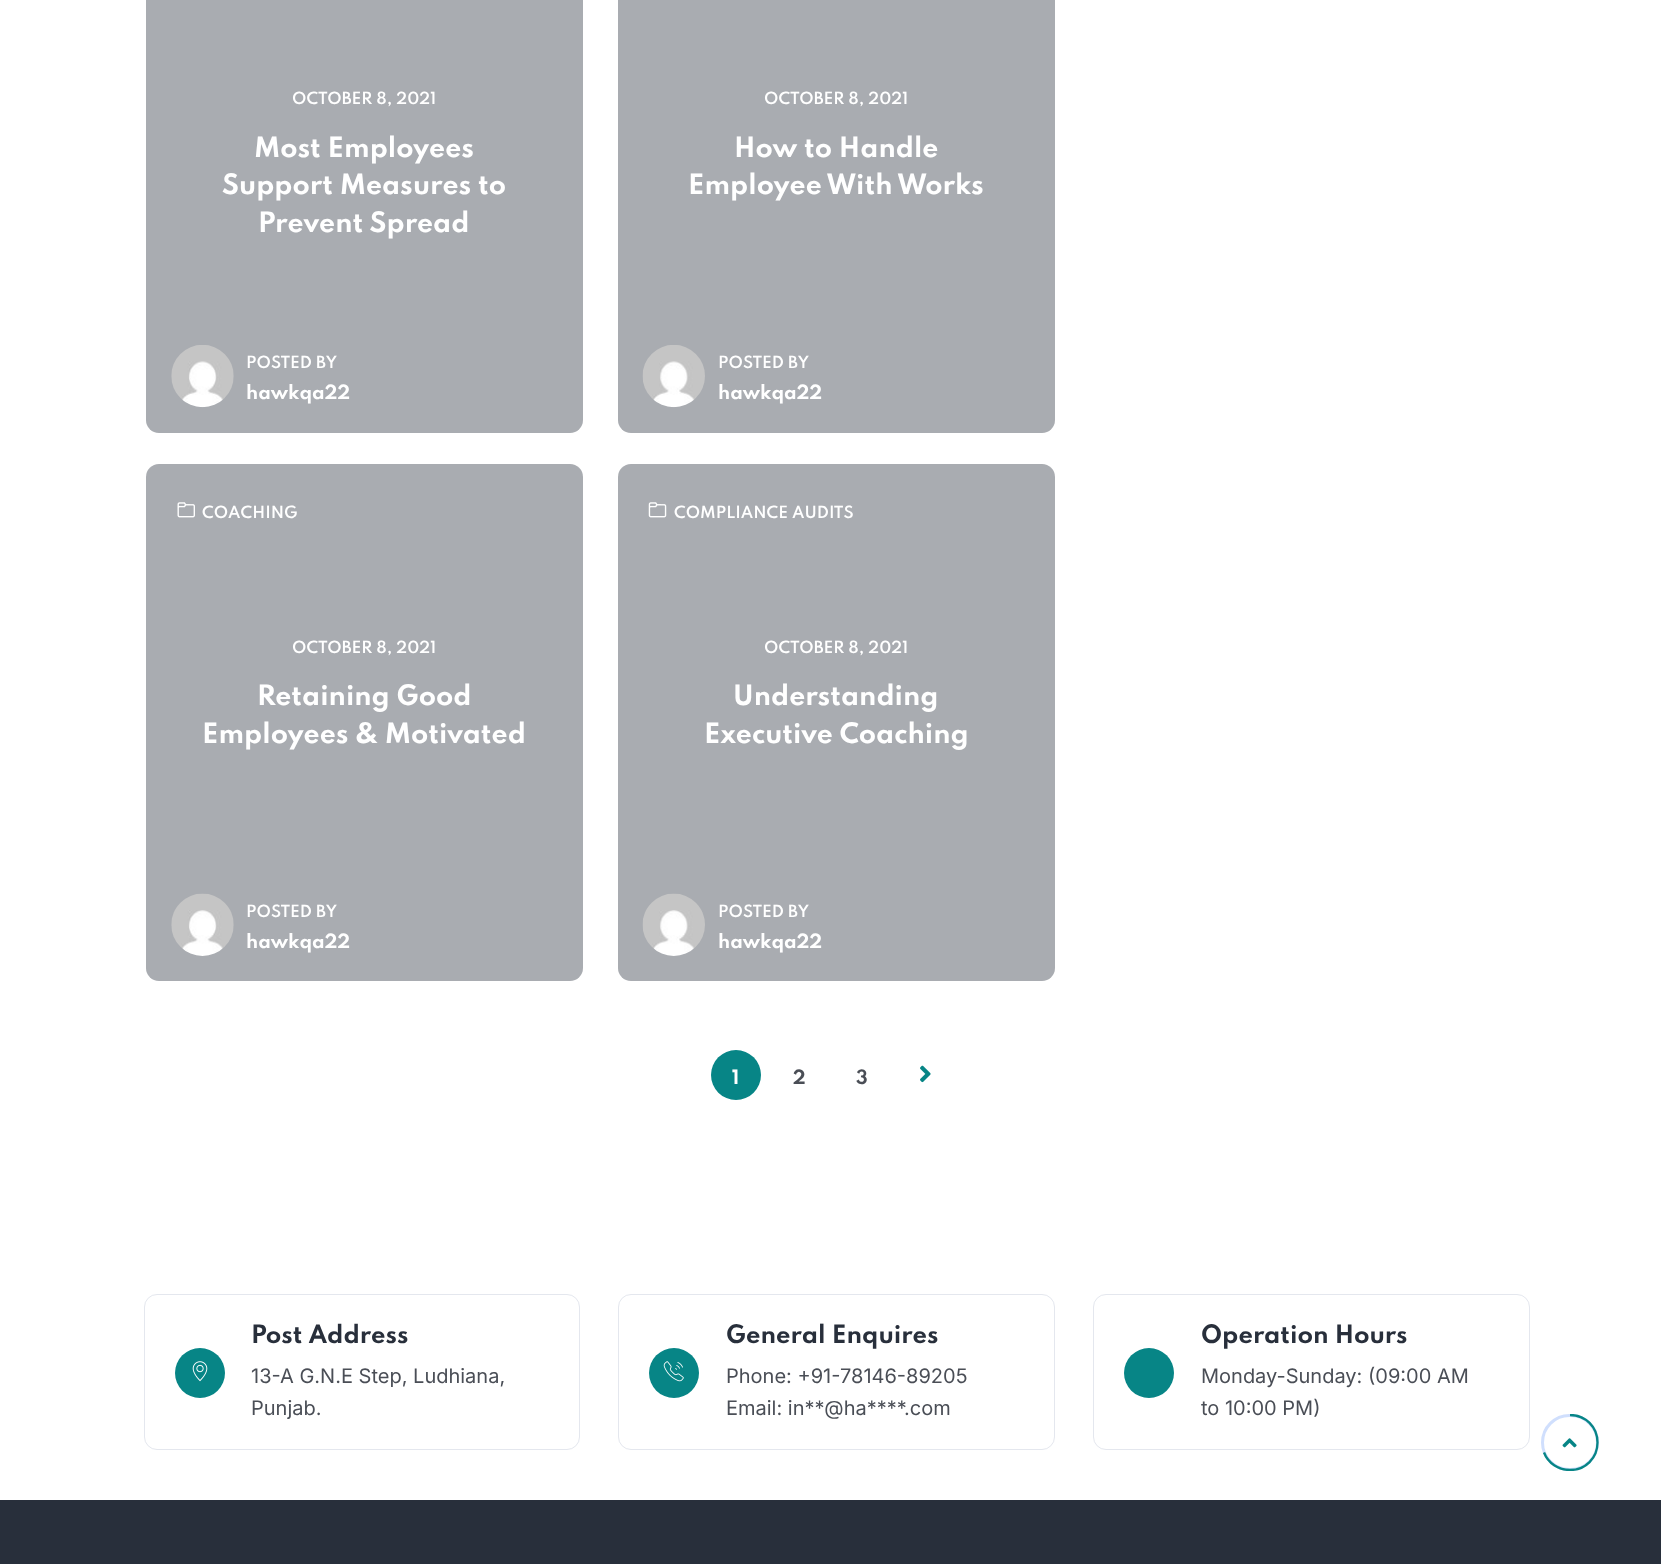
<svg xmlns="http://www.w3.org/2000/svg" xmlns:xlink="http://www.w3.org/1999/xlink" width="1661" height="1564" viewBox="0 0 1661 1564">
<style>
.cls-1{font:600 15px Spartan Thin;fill:#ffffff}
.cls-2{font:bold 25px Spartan Thin;fill:#ffffff}
.cls-3{font:bold 17.5px Spartan Thin;fill:#ffffff}
.cls-4{font:bold 17.5px Spartan Thin;fill:#4a4e56}
.cls-5{font:bold 22.5px Spartan Thin;fill:#282f3b}
.cls-6{font:20px Inter;fill:#4a4e56}
</style>
<defs>
<clipPath id="clip1"><rect x="1541" y="1414" width="58" height="57"/></clipPath>
</defs>
<rect width="100%" height="100%" fill="#ffffff"/>
<rect fill="#a9acb1" x="146" y="-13" width="437" height="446" rx="13"/>
<image xlink:href="image0.png" x="171" y="345" width="63" height="63"/>
<rect fill="#a9acb1" x="618" y="-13" width="437" height="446" rx="13"/>
<image xlink:href="image1.png" x="642" y="345" width="63" height="63"/>
<rect fill="#a9acb1" x="146" y="464" width="437" height="517" rx="13"/>
<image xlink:href="image2.png" x="177" y="502" width="18" height="16"/>
<image xlink:href="image3.png" x="171" y="893" width="63" height="63"/>
<rect fill="#a9acb1" x="618" y="464" width="437" height="517" rx="13"/>
<image xlink:href="image4.png" x="648" y="502" width="19" height="16"/>
<image xlink:href="image5.png" x="642" y="893" width="63" height="63"/>
<circle fill="#078586" cx="736" cy="1075" r="25"/>
<image xlink:href="image6.png" x="920" y="1065" width="11" height="18"/>
<rect fill="none" stroke="#e4e7ee" x="144.5" y="1294.5" width="435" height="155" rx="12.5"/>
<circle fill="#078586" cx="200" cy="1373" r="25"/>
<image xlink:href="image7.png" x="192" y="1361" width="16" height="21"/>
<rect fill="none" stroke="#e4e7ee" x="618.5" y="1294.5" width="436" height="155" rx="12.5"/>
<circle fill="#078586" cx="674" cy="1373" r="25"/>
<image xlink:href="image8.png" x="663" y="1361" width="21" height="21"/>
<rect fill="none" stroke="#e4e7ee" x="1093.5" y="1294.5" width="436" height="155" rx="12.5"/>
<circle fill="#078586" cx="1149" cy="1373" r="25"/>
<rect fill="#282f3b" x="0" y="1500" width="1661" height="64"/>
<rect fill="none" stroke="#d0dffd" stroke-width="3" x="1542.5" y="1415.5" width="55" height="54" rx="27"/>
<g clip-path="url(#clip1)">
<path fill="none" stroke="#078586" stroke-width="2.3" d="M1570 1415C1585.5 1415 1597.5 1427 1597.5 1442.5C1597.5 1458 1585.5 1470 1570 1470C1558.5 1470 1548 1463 1544 1452.5"/>
</g>
<image xlink:href="image9.png" x="1562" y="1438" width="15" height="10"/>
<text class="cls-1" x="292" y="104">OCTOBER 8, 2021</text>
<text class="cls-2" x="254" y="157">Most Employees</text>
<text class="cls-2" x="222" y="194">Support Measures to</text>
<text class="cls-2" x="258" y="232">Prevent Spread</text>
<text class="cls-1" x="246" y="368">POSTED BY</text>
<text class="cls-3" x="246" y="399">hawkqa22</text>
<text class="cls-1" x="764" y="104">OCTOBER 8, 2021</text>
<text class="cls-2" x="734" y="157">How to Handle</text>
<text class="cls-2" x="688" y="194">Employee With Works</text>
<text class="cls-1" x="718" y="368">POSTED BY</text>
<text class="cls-3" x="718" y="399">hawkqa22</text>
<text class="cls-1" x="202" y="518">COACHING</text>
<text class="cls-1" x="292" y="653">OCTOBER 8, 2021</text>
<text class="cls-2" x="257" y="705">Retaining Good</text>
<text class="cls-2" x="202" y="743">Employees &amp; Motivated</text>
<text class="cls-1" x="246" y="917">POSTED BY</text>
<text class="cls-3" x="246" y="948">hawkqa22</text>
<text class="cls-1" x="674" y="518">COMPLIANCE AUDITS</text>
<text class="cls-1" x="764" y="653">OCTOBER 8, 2021</text>
<text class="cls-2" x="733" y="705">Understanding</text>
<text class="cls-2" x="704" y="743">Executive Coaching</text>
<text class="cls-1" x="718" y="917">POSTED BY</text>
<text class="cls-3" x="718" y="948">hawkqa22</text>
<text class="cls-3" x="732" y="1084">1</text>
<text class="cls-4" x="793" y="1084">2</text>
<text class="cls-4" x="856" y="1084">3</text>
<text class="cls-5" x="251" y="1343">Post Address</text>
<text class="cls-6"><tspan x="251" y="1383">13-A G.N.E Step, Ludhiana,</tspan><tspan x="251" y="1415">Punjab.</tspan></text>
<text class="cls-5" x="726" y="1343">General Enquires</text>
<text class="cls-6"><tspan x="726" y="1383">Phone: +91-78146-89205</tspan><tspan x="726" y="1415">Email: in**@ha****.com</tspan></text>
<text class="cls-5" x="1201" y="1343">Operation Hours</text>
<text class="cls-6"><tspan x="1201" y="1383">Monday-Sunday: (09:00 AM</tspan><tspan x="1201" y="1415">to 10:00 PM)</tspan></text>
</svg>
